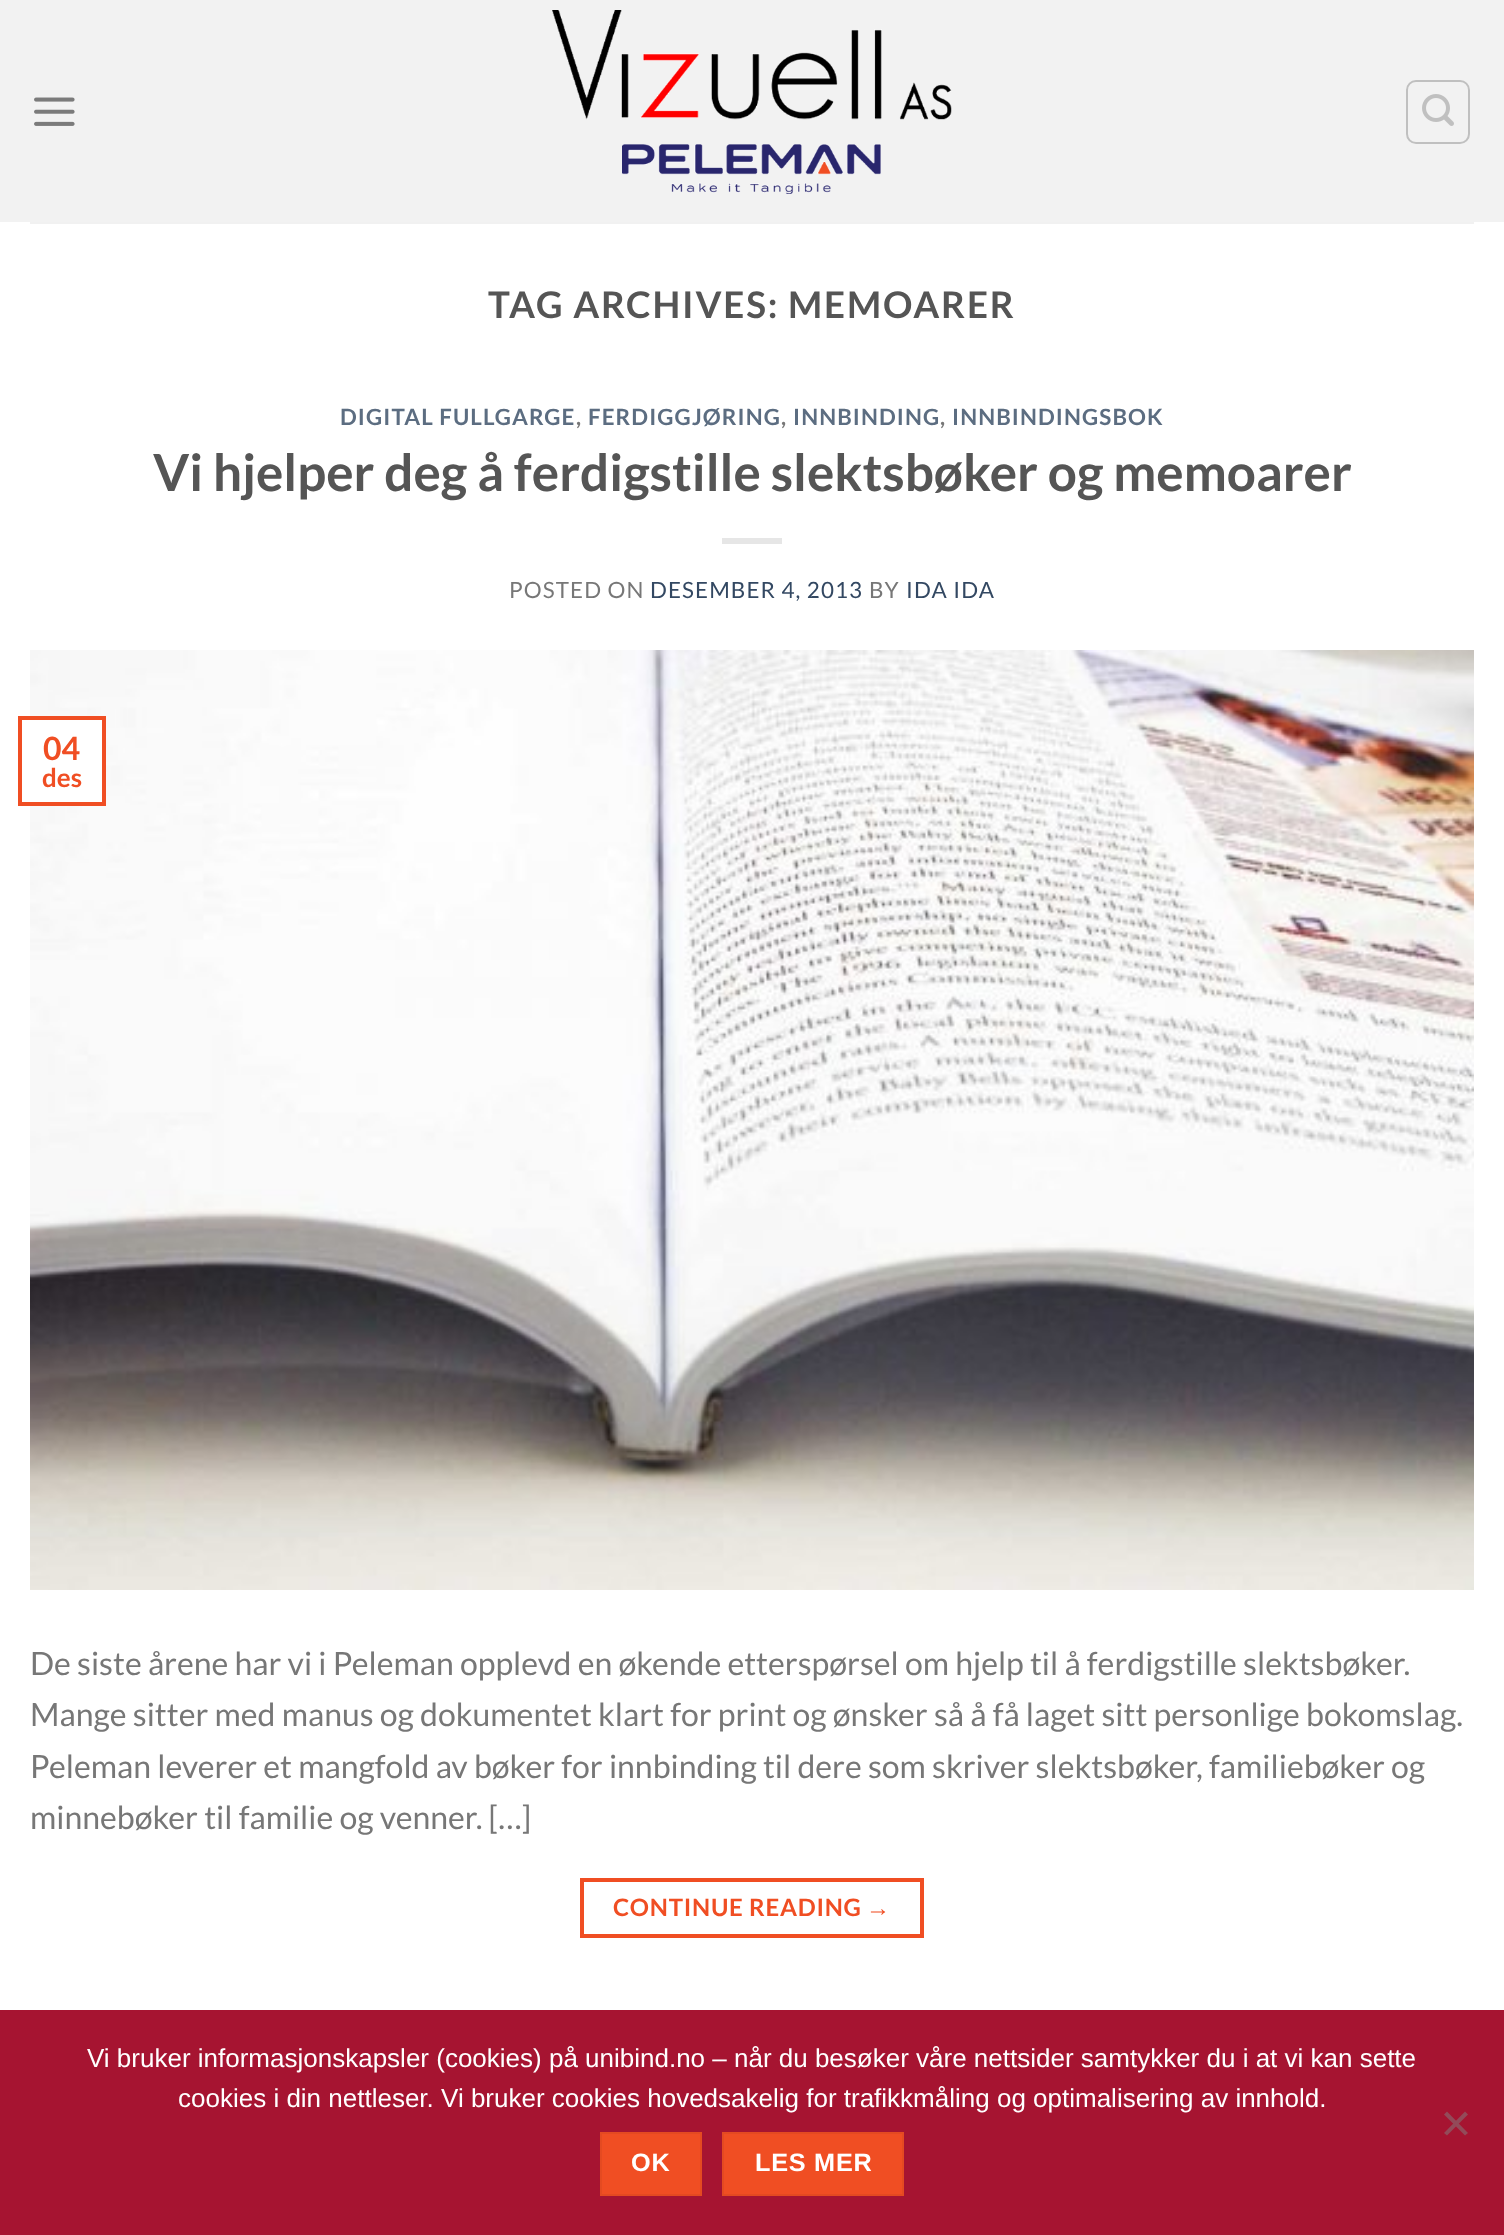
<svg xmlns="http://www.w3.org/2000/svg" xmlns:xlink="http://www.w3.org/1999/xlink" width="1504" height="2235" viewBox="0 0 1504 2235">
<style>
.cls-1{font:bold 36.75px Lato;letter-spacing:1.8px;fill:#555555}
.cls-2{font:bold 22.4px Lato;letter-spacing:1.1px;fill:#5c6d81}
.cls-3{font:bold 22.4px Lato;letter-spacing:1.1px;fill:#777777}
.cls-4{font:bold 51.2px Lato;fill:#555555}
.cls-5{font:22.4px Lato;letter-spacing:1.1px;fill:#777777}
.cls-6{font:22.4px Lato;letter-spacing:1.1px;fill:#334862}
.cls-7{font:bold 32px Lato;fill:#f04e23}
.cls-8{font:bold 26px Lato;fill:#f04e23}
.cls-9{font:32px Lato;fill:#777777}
.cls-10{font:bold 24px Lato;letter-spacing:0.75px;fill:#f04e23}
.cls-11{font:bold 24px Liberation Sans;letter-spacing:0.75px;fill:#f04e23}
.cls-12{font:26px Liberation Sans;fill:#ffffff}
.cls-13{font:bold 25.25px Liberation Sans;letter-spacing:0.75px;fill:#ffffff}
</style>
<rect width="100%" height="100%" fill="#ffffff"/>
<rect fill="#f2f2f2" x="0" y="0" width="1504" height="222"/>
<image xlink:href="image0.png" x="34" y="97" width="41" height="29"/>
<image xlink:href="image1.png" x="552" y="10" width="400" height="184"/>
<rect fill="none" stroke="#c0c0c0" stroke-width="2" x="1407" y="81" width="62" height="62" rx="9"/>
<image xlink:href="image2.png" x="1422" y="94" width="32" height="32"/>
<rect fill="#f1f1f1" x="30" y="222" width="1444" height="2"/>
<rect fill="#e6e6e6" x="722" y="538" width="60" height="6"/>
<image xlink:href="image3.png" x="30" y="650" width="1444" height="940"/>
<rect fill="#ffffff" x="30" y="720" width="72" height="82"/>
<rect fill="none" stroke="#f04e23" stroke-width="4" x="20" y="718" width="84" height="86"/>
<rect fill="none" stroke="#f04e23" stroke-width="4" x="582" y="1880" width="340" height="56"/>
<rect fill="#a61431" x="0" y="2010" width="1504" height="225"/>
<path fill="#934a59" d="M1465 2111.5L1468 2114.5L1447 2135.5L1444 2133Z"/>
<path fill="#934a59" d="M1444 2114.5L1447 2111.5L1468 2133L1465 2135.5Z"/>
<rect fill="#f04e23" stroke="#e44a21" stroke-width="2" x="601" y="2133" width="100" height="62"/>
<rect fill="#f04e23" stroke="#e44a21" stroke-width="2" x="723" y="2133" width="180" height="62"/>
<text class="cls-1" x="488" y="318">TAG ARCHIVES: MEMOARER</text>
<text class="cls-2" x="340" y="425">DIGITAL FULLGARGE</text>
<text class="cls-3" x="576" y="425">,</text>
<text class="cls-2" x="588" y="425">FERDIGGJØRING</text>
<text class="cls-3" x="781" y="425">,</text>
<text class="cls-2" x="793" y="425">INNBINDING</text>
<text class="cls-3" x="940" y="425">,</text>
<text class="cls-2" x="952" y="425">INNBINDINGSBOK</text>
<text class="cls-4" x="153" y="491">Vi hjelper deg å ferdigstille slektsbøker og memoarer</text>
<text class="cls-5" x="509" y="598">POSTED ON</text>
<text class="cls-6" x="650" y="598">DESEMBER 4, 2013</text>
<text class="cls-5" x="869" y="598">BY</text>
<text class="cls-6" x="906" y="598">IDA IDA</text>
<text class="cls-7" x="43" y="760">04</text>
<text class="cls-8" x="42" y="787">des</text>
<text class="cls-9"><tspan x="30" y="1675">De siste årene har vi i Peleman opplevd en økende etterspørsel om hjelp til å ferdigstille slektsbøker.</tspan><tspan x="30" y="1726">Mange sitter med manus og dokumentet klart for print og ønsker så å få laget sitt personlige bokomslag.</tspan><tspan x="30" y="1778">Peleman leverer et mangfold av bøker for innbinding til dere som skriver slektsbøker, familiebøker og</tspan><tspan x="30" y="1829">minnebøker til familie og venner. […]</tspan></text>
<text class="cls-10" x="613" y="1916">CONTINUE READING</text>
<text class="cls-11" x="866" y="1916">→</text>
<text class="cls-12" x="87" y="2067">Vi bruker informasjonskapsler (cookies) på unibind.no – når du besøker våre nettsider samtykker du i at vi kan sette</text>
<text class="cls-12" x="178" y="2107">cookies i din nettleser. Vi bruker cookies hovedsakelig for trafikkmåling og optimalisering av innhold.</text>
<text class="cls-13" x="631" y="2171">OK</text>
<text class="cls-13" x="755" y="2171">LES MER</text>
</svg>
